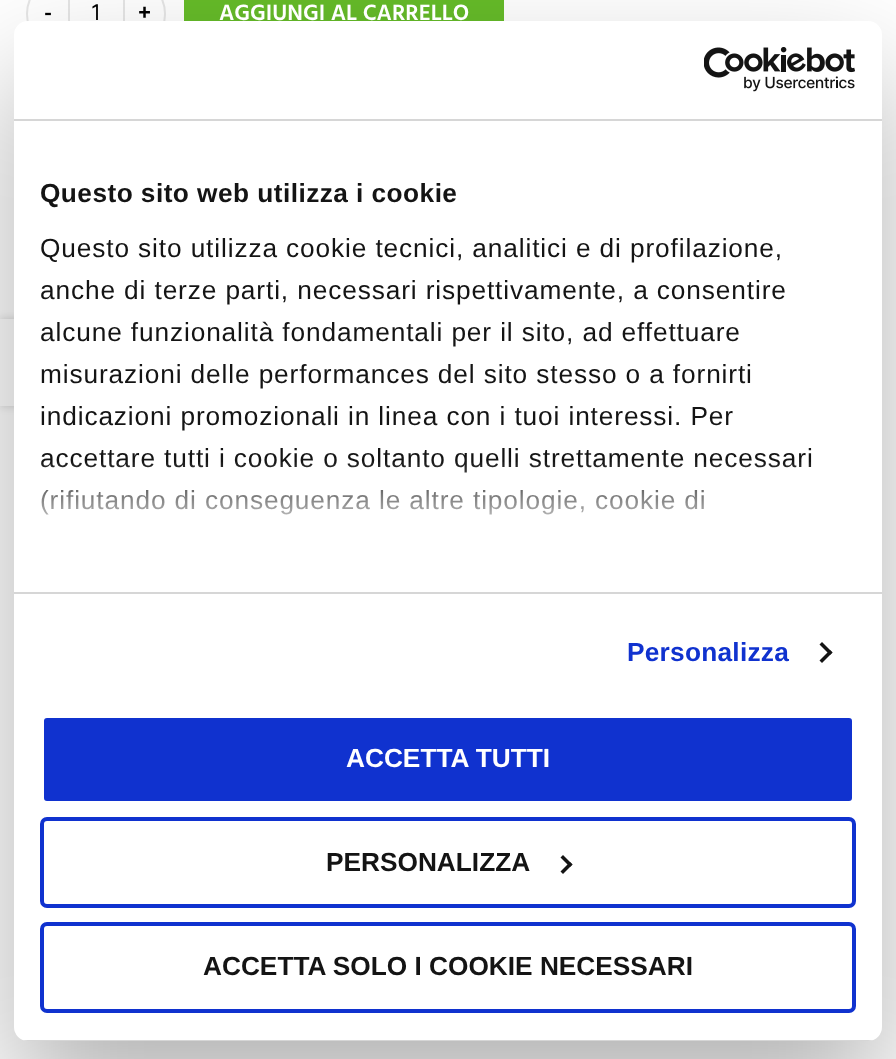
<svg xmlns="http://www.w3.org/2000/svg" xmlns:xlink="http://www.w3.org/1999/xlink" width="896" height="1059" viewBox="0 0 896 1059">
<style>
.cls-1{font:600 22.75px Hind;fill:#000000}
.cls-2{font:24px Hind;fill:#000000}
.cls-3{font:600 22.75px Hind;fill:#ffffff}
.cls-4{font:bold 26.25px Liberation Sans;letter-spacing:0.45px;fill:#141414}
.cls-5{font:26.25px Liberation Sans;letter-spacing:0.88px;fill:#141414}
.cls-6{font:bold 26.25px Liberation Sans;letter-spacing:0.25px;fill:#1032cf}
.cls-7{font:bold 26.25px Liberation Sans;fill:#ffffff}
.cls-8{font:bold 26.25px Liberation Sans;fill:#141414}
</style>
<defs>
<clipPath id="clip1"><path d="M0 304H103V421H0ZM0 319H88V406H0Z" clip-rule="evenodd"/></clipPath>
<clipPath id="clip2"><rect x="14" y="21" width="868" height="1020" rx="14"/></clipPath>
<linearGradient id="g1" gradientUnits="userSpaceOnUse" x1="437" y1="591" x2="437" y2="460"><stop offset="0" stop-color="#ffffff"/><stop offset="0.5" stop-color="#ffffff" stop-opacity="0.8"/><stop offset="1" stop-color="#ffffff" stop-opacity="0"/></linearGradient>
</defs>
<rect width="100%" height="100%" fill="#ffffff"/>
<path fill="none" stroke="#e6e6e6" stroke-width="2" d="M63-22H69V50H63C43 50 27 34 27 14C27-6 43-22 63-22Z"/>
<path fill="none" stroke="#e6e6e6" stroke-width="2" d="M124-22H129C149-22 165-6 165 14C165 34 149 50 129 50H124Z"/>
<rect fill="#66bc29" x="184" y="0" width="320" height="21"/>
<rect fill="#000000" fill-opacity="0.3" filter="blur(59.5px)" x="14" y="77" width="868" height="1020" rx="14"/>
<g clip-path="url(#clip1)">
<rect fill="#000000" fill-opacity="0.17" filter="blur(4.5px)" x="0" y="319" width="88" height="87"/>
</g>
<rect fill="#ffffff" x="14" y="21" width="868" height="1020" rx="14"/>
<rect fill="#d6d6d6" x="14" y="119" width="868" height="2"/>
<image xlink:href="image0.png" x="704" y="47" width="151" height="45"/>
<rect fill="#d6d6d6" x="14" y="592" width="868" height="2"/>
<path fill="#141414" d="M822 642L832.5 652.5L830 655L819.5 644.5Z"/>
<path fill="#141414" d="M830 650L832.5 652.5L822 663L819.5 660.5Z"/>
<g clip-path="url(#clip2)">
<rect fill="#d6d6d6" x="23" y="1040" width="850" height="1"/>
</g>
<rect fill="#1032cf" stroke="#ffffff" stroke-width="4" x="42" y="716" width="812" height="87" rx="5"/>
<rect fill="none" stroke="#1032cf" stroke-width="4" x="42" y="819" width="812" height="87" rx="5"/>
<path fill="#141414" d="M563 855L572.5 864.5L570 867L560.5 857.5Z"/>
<path fill="#141414" d="M570 862L572.5 864.5L563 874L560.5 871.5Z"/>
<rect fill="none" stroke="#1032cf" stroke-width="4" x="42" y="924" width="812" height="87" rx="5"/>
<text class="cls-1" x="44" y="20">-</text>
<text class="cls-2" x="92" y="20">1</text>
<text class="cls-1" x="138" y="20">+</text>
<text class="cls-3" x="219" y="20">AGGIUNGI AL CARRELLO</text>
<text class="cls-4" x="40" y="202">Questo sito web utilizza i cookie</text>
<text class="cls-5"><tspan x="40" y="257">Questo sito utilizza cookie tecnici, analitici e di profilazione,</tspan><tspan x="40" y="299">anche di terze parti, necessari rispettivamente, a consentire</tspan><tspan x="40" y="341">alcune funzionalità fondamentali per il sito, ad effettuare</tspan><tspan x="40" y="383">misurazioni delle performances del sito stesso o a fornirti</tspan><tspan x="40" y="425">indicazioni promozionali in linea con i tuoi interessi. Per</tspan><tspan x="40" y="467">accettare tutti i cookie o soltanto quelli strettamente necessari</tspan><tspan x="40" y="509">(rifiutando di conseguenza le altre tipologie, cookie di</tspan></text>
<rect fill="url(#g1)" x="41" y="462" width="770" height="53"/>
<text class="cls-6" x="627" y="661">Personalizza</text>
<text class="cls-7" x="346" y="767">ACCETTA TUTTI</text>
<text class="cls-8" x="326" y="871">PERSONALIZZA</text>
<text class="cls-8" x="203" y="975">ACCETTA SOLO I COOKIE NECESSARI</text>
</svg>
